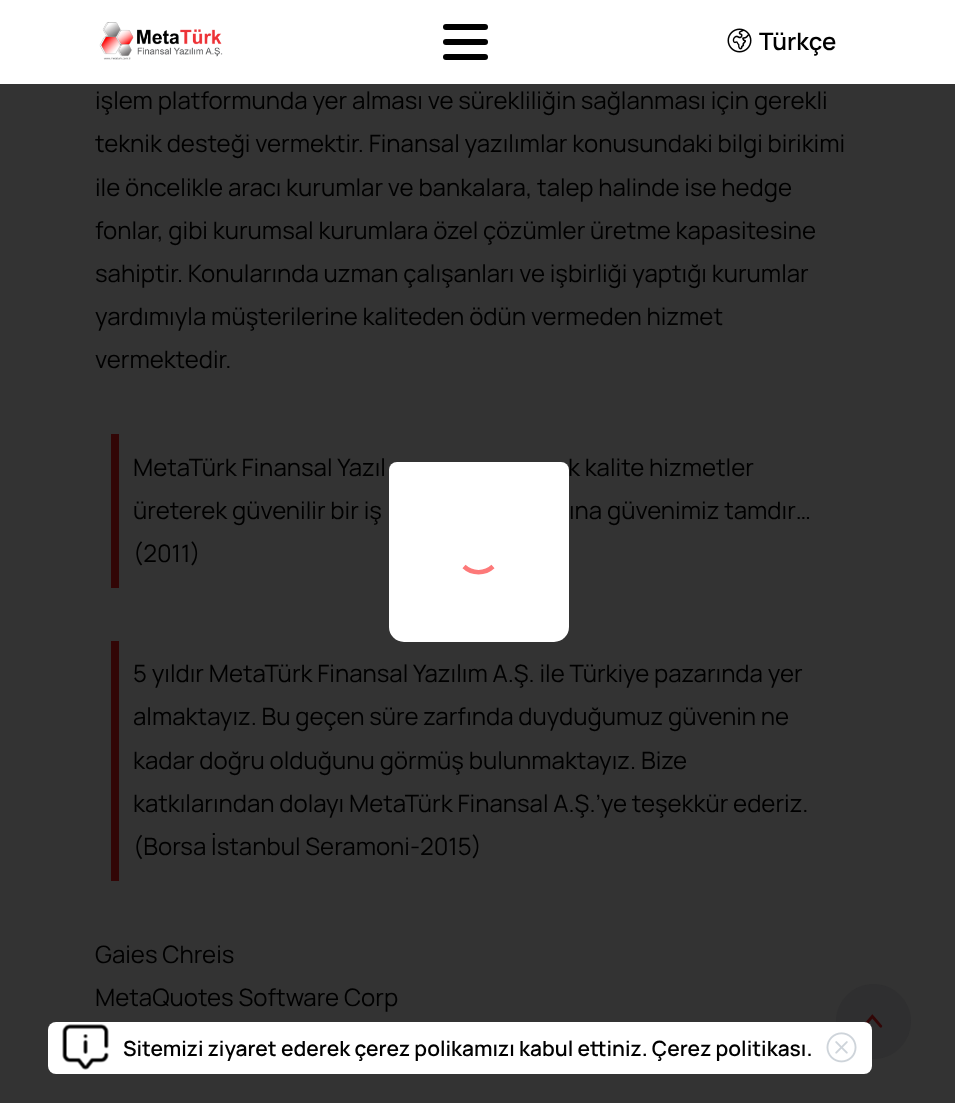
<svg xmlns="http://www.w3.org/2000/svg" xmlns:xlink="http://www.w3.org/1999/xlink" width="955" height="1103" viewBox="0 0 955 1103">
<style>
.cls-1{font:600 24px Manrope;fill:#000000}
.cls-2{font:24px Manrope;fill:#000000}
.cls-3{font:600 21px Manrope;fill:#000000}
</style>
<rect width="100%" height="100%" fill="#333333"/>
<rect fill="#ffffff" x="0" y="0" width="955" height="84"/>
<image xlink:href="image0.png" x="99" y="22" width="124" height="38"/>
<rect fill="#010101" x="443" y="39" width="45" height="6" rx="3"/>
<rect fill="#010101" x="443" y="24" width="45" height="6" rx="3"/>
<rect fill="#010101" x="443" y="54" width="45" height="6" rx="3"/>
<image xlink:href="image1.png" x="727" y="28" width="25" height="25"/>
<rect fill="#320606" x="111" y="434" width="8" height="154"/>
<rect fill="#320606" x="111" y="641" width="8" height="240"/>
<rect fill="#ffffff" x="389" y="462" width="180" height="30" rx="8"/>
<rect fill="#ffffff" x="389" y="462" width="180" height="180" rx="15"/>
<path fill="none" stroke="#fd7979" stroke-width="4.5" d="M493 566.5C485 574 472 574 464 566.5"/>
<circle fill="#2f2f30" cx="873.5" cy="1021.5" r="37.5"/>
<image xlink:href="image4.png" x="865" y="1014" width="18" height="14"/>
<rect fill="#ffffff" x="48" y="1022" width="824" height="52" rx="8"/>
<image xlink:href="image2.png" x="62" y="1024" width="47" height="46"/>
<image xlink:href="image3.png" x="826" y="1032" width="31" height="31"/>
<text class="cls-1" x="759" y="50">Türkçe</text>
<text class="cls-2"><tspan x="95" y="109">işlem platformunda yer alması ve sürekliliğin sağlanması için gerekli</tspan><tspan x="95" y="152">teknik desteği vermektir. Finansal yazılımlar konusundaki bilgi birikimi</tspan><tspan x="95" y="196">ile öncelikle aracı kurumlar ve bankalara, talep halinde ise hedge</tspan><tspan x="95" y="239">fonlar, gibi kurumsal kurumlara özel çözümler üretme kapasitesine</tspan><tspan x="95" y="282">sahiptir. Konularında uzman çalışanları ve işbirliği yaptığı kurumlar</tspan><tspan x="95" y="325">yardımıyla müşterilerine kaliteden ödün vermeden hizmet</tspan><tspan x="95" y="368">vermektedir.</tspan></text>
<text class="cls-2" x="133" y="476">MetaTürk Finansal Yazıl</text>
<text class="cls-2" x="568" y="476">k kalite hizmetler</text>
<text class="cls-2" x="133" y="519">üreterek güvenilir bir iş</text>
<text class="cls-2" x="569" y="519">ına güvenimiz tamdır…</text>
<text class="cls-2" x="133" y="562">(2011)</text>
<text class="cls-2"><tspan x="133" y="682">5 yıldır MetaTürk Finansal Yazılım A.Ş. ile Türkiye pazarında yer</tspan><tspan x="133" y="725">almaktayız. Bu geçen süre zarfında duyduğumuz güvenin ne</tspan><tspan x="133" y="769">kadar doğru olduğunu görmüş bulunmaktayız. Bize</tspan><tspan x="133" y="812">katkılarından dolayı MetaTürk Finansal A.Ş.’ye teşekkür ederiz.</tspan><tspan x="133" y="855">(Borsa İstanbul Seramoni-2015)</tspan></text>
<text class="cls-2"><tspan x="95" y="963">Gaies Chreis</tspan><tspan x="95" y="1006">MetaQuotes Software Corp</tspan></text>
<text class="cls-3" x="123" y="1056">Sitemizi ziyaret ederek çerez polikamızı kabul ettiniz. Çerez politikası.</text>
</svg>
